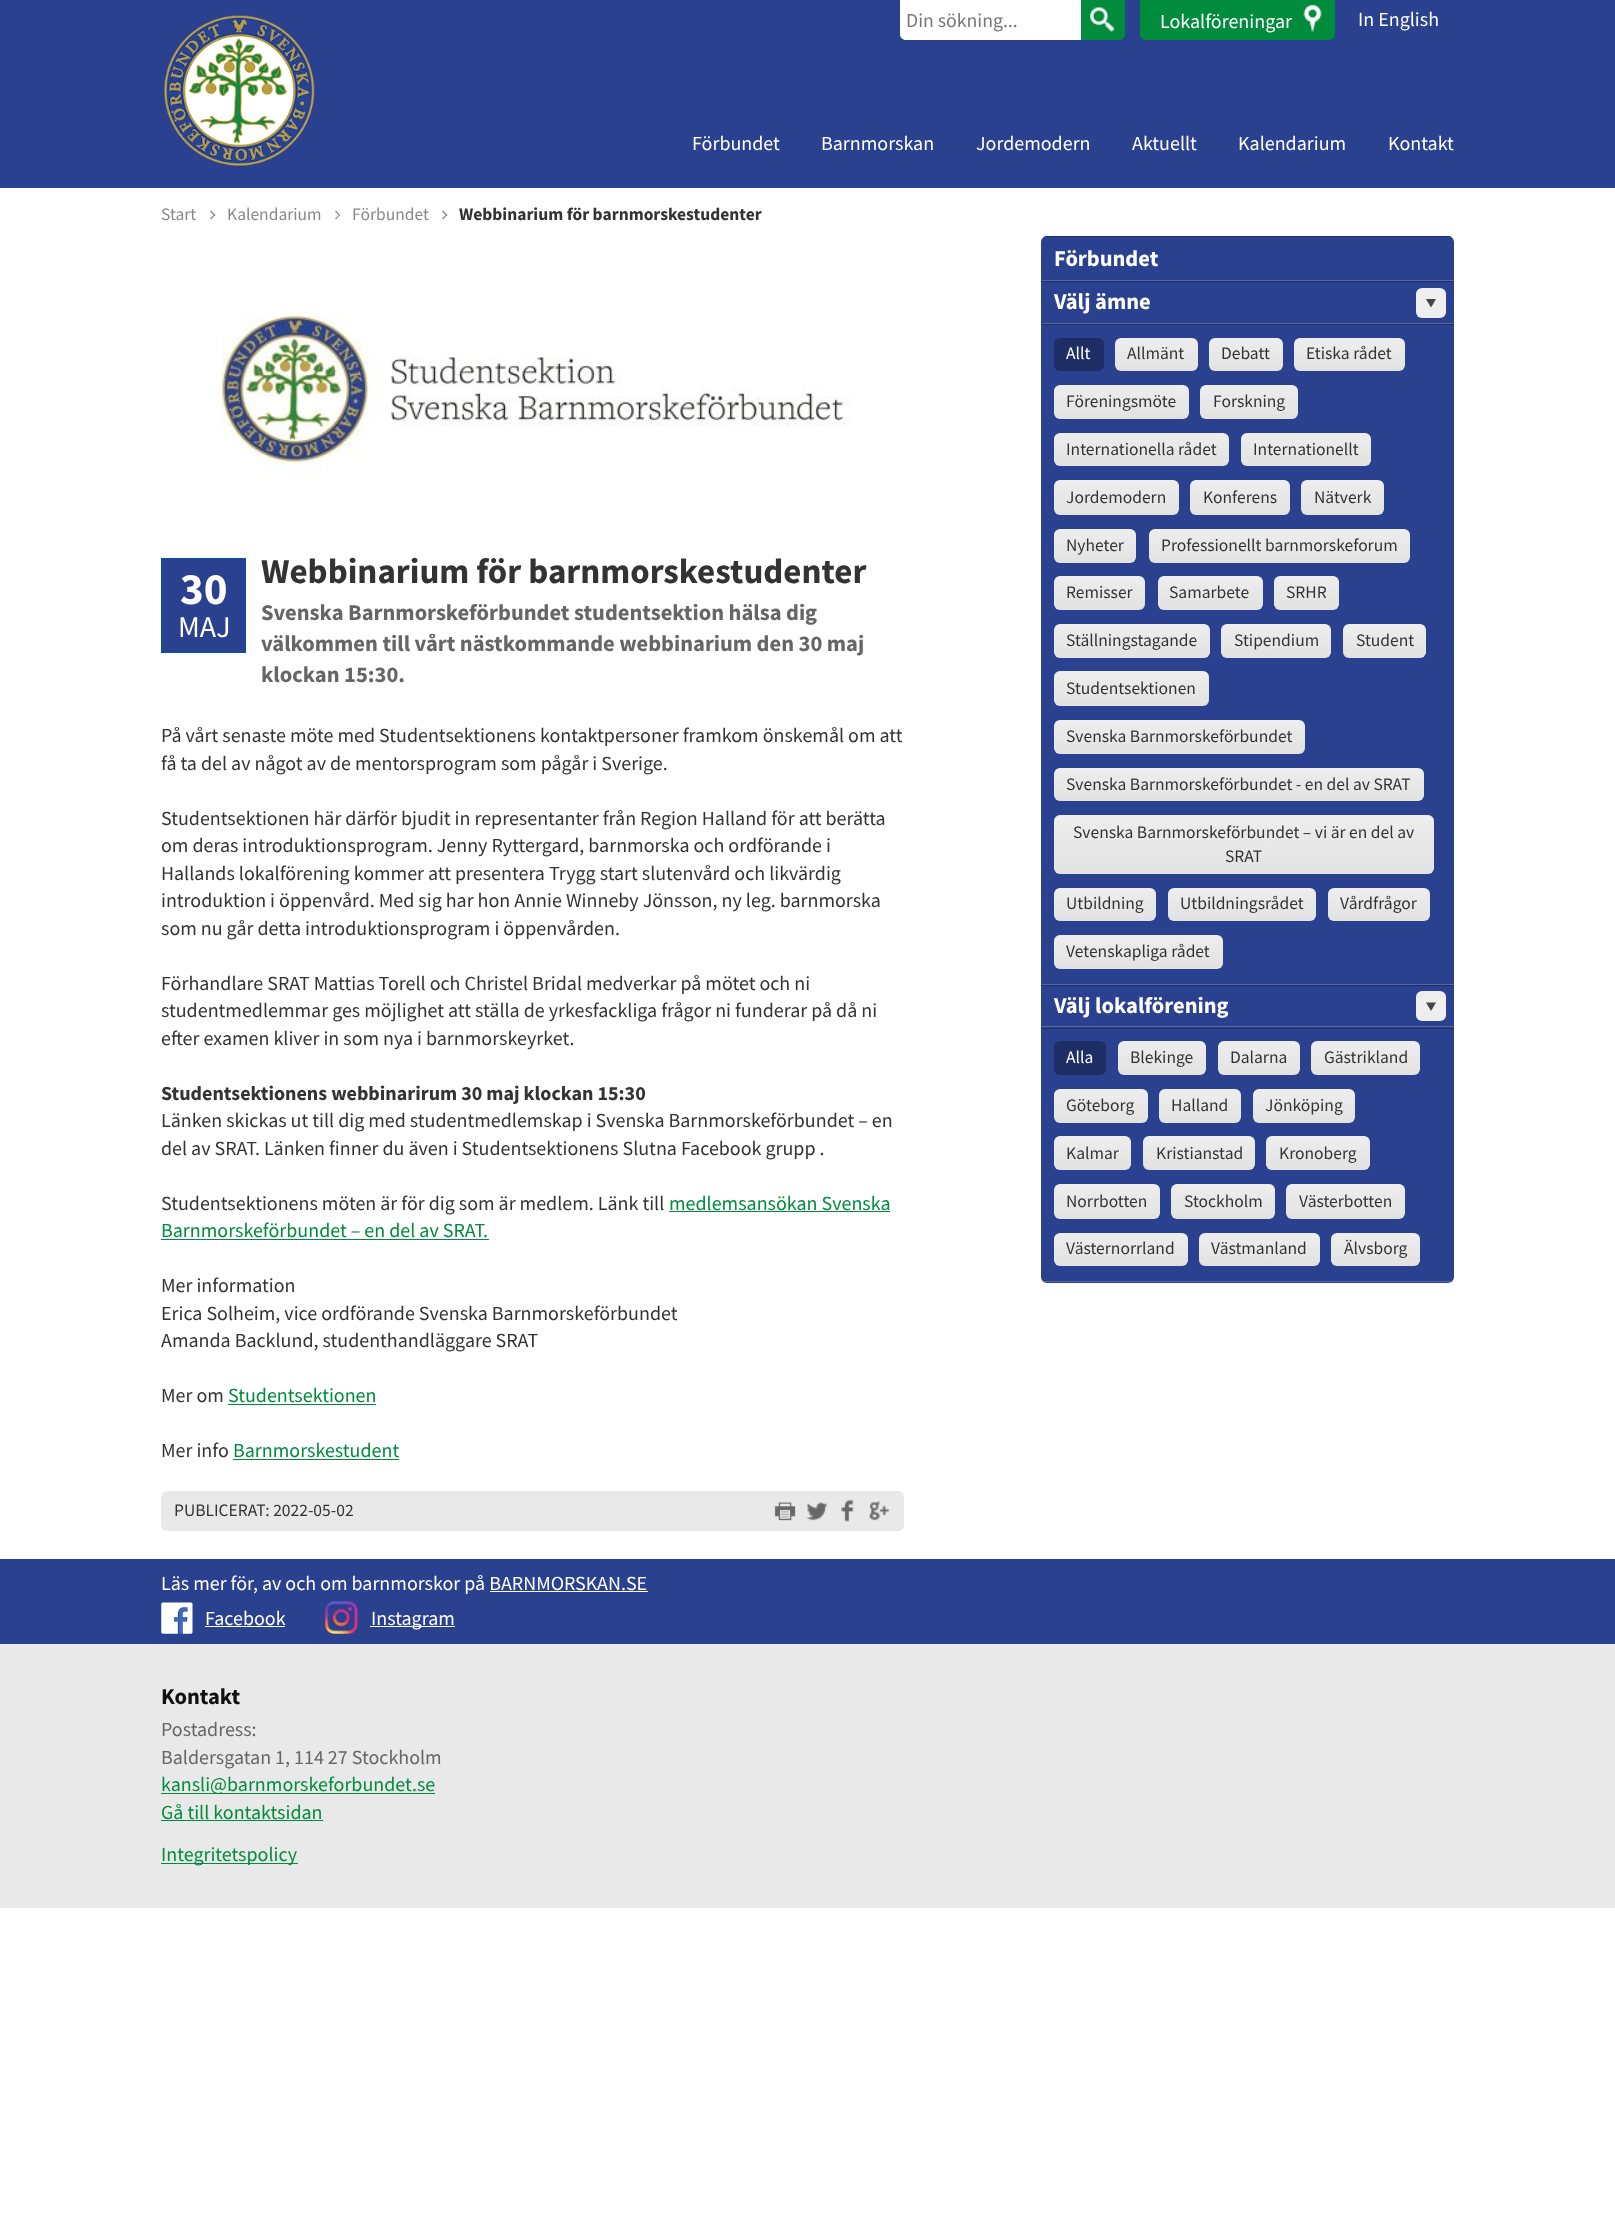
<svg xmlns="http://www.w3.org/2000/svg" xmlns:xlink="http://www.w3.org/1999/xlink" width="1615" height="2231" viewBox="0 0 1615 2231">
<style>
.cls-1{font:19.75px Source Sans Pro;fill:#777777}
.cls-2{font:20px Source Sans Pro;fill:#ffffff}
.cls-3{font:17.5px Source Sans Pro;fill:#888888}
.cls-4{font:bold 17.5px Source Sans Pro;fill:#333333}
.cls-5{font:bold 35px Source Sans Pro;fill:#333333}
.cls-6{font:bold 45px Source Sans Pro;fill:#ffffff}
.cls-7{font:30px Source Sans Pro;fill:#ffffff}
.cls-8{font:bold 22.5px Source Sans Pro;fill:#666666}
.cls-9{font:20px Source Sans Pro;fill:#333333}
.cls-10{font:bold 20px Source Sans Pro;fill:#333333}
.cls-11{font:20px Source Sans Pro;fill:#008c3c}
.cls-12{font:17.5px Source Sans Pro;fill:#333333}
.cls-13{font:bold 22.5px Source Sans Pro;fill:#ffffff}
.cls-14{font:17.5px Source Sans Pro;fill:#ffffff}
.cls-15{font:bold 22.5px Source Sans Pro;fill:#111111}
.cls-16{font:20px Source Sans Pro;fill:#666666}
</style>
<defs>
<clipPath id="clip1"><rect x="1041" y="236" width="413" height="1047" rx="6"/></clipPath>
<linearGradient id="g1" gradientUnits="userSpaceOnUse" x1="1156" y1="338" x2="1156" y2="371"><stop offset="0" stop-color="#eeeeee"/><stop offset="1" stop-color="#e2e2e2"/></linearGradient>
<linearGradient id="g2" gradientUnits="userSpaceOnUse" x1="1246" y1="338" x2="1246" y2="371"><stop offset="0" stop-color="#eeeeee"/><stop offset="1" stop-color="#e2e2e2"/></linearGradient>
<linearGradient id="g3" gradientUnits="userSpaceOnUse" x1="1349" y1="338" x2="1349" y2="371"><stop offset="0" stop-color="#eeeeee"/><stop offset="1" stop-color="#e2e2e2"/></linearGradient>
<linearGradient id="g4" gradientUnits="userSpaceOnUse" x1="1121" y1="385" x2="1121" y2="419"><stop offset="0" stop-color="#eeeeee"/><stop offset="1" stop-color="#e2e2e2"/></linearGradient>
<linearGradient id="g5" gradientUnits="userSpaceOnUse" x1="1249" y1="385" x2="1249" y2="419"><stop offset="0" stop-color="#eeeeee"/><stop offset="1" stop-color="#e2e2e2"/></linearGradient>
<linearGradient id="g6" gradientUnits="userSpaceOnUse" x1="1141" y1="433" x2="1141" y2="466"><stop offset="0" stop-color="#eeeeee"/><stop offset="1" stop-color="#e2e2e2"/></linearGradient>
<linearGradient id="g7" gradientUnits="userSpaceOnUse" x1="1306" y1="433" x2="1306" y2="466"><stop offset="0" stop-color="#eeeeee"/><stop offset="1" stop-color="#e2e2e2"/></linearGradient>
<linearGradient id="g8" gradientUnits="userSpaceOnUse" x1="1116" y1="480" x2="1116" y2="515"><stop offset="0" stop-color="#eeeeee"/><stop offset="1" stop-color="#e2e2e2"/></linearGradient>
<linearGradient id="g9" gradientUnits="userSpaceOnUse" x1="1240" y1="480" x2="1240" y2="515"><stop offset="0" stop-color="#eeeeee"/><stop offset="1" stop-color="#e2e2e2"/></linearGradient>
<linearGradient id="g10" gradientUnits="userSpaceOnUse" x1="1343" y1="480" x2="1343" y2="515"><stop offset="0" stop-color="#eeeeee"/><stop offset="1" stop-color="#e2e2e2"/></linearGradient>
<linearGradient id="g11" gradientUnits="userSpaceOnUse" x1="1095" y1="529" x2="1095" y2="563"><stop offset="0" stop-color="#eeeeee"/><stop offset="1" stop-color="#e2e2e2"/></linearGradient>
<linearGradient id="g12" gradientUnits="userSpaceOnUse" x1="1279" y1="529" x2="1279" y2="563"><stop offset="0" stop-color="#eeeeee"/><stop offset="1" stop-color="#e2e2e2"/></linearGradient>
<linearGradient id="g13" gradientUnits="userSpaceOnUse" x1="1099" y1="576" x2="1099" y2="610"><stop offset="0" stop-color="#eeeeee"/><stop offset="1" stop-color="#e2e2e2"/></linearGradient>
<linearGradient id="g14" gradientUnits="userSpaceOnUse" x1="1210" y1="576" x2="1210" y2="610"><stop offset="0" stop-color="#eeeeee"/><stop offset="1" stop-color="#e2e2e2"/></linearGradient>
<linearGradient id="g15" gradientUnits="userSpaceOnUse" x1="1306" y1="576" x2="1306" y2="610"><stop offset="0" stop-color="#eeeeee"/><stop offset="1" stop-color="#e2e2e2"/></linearGradient>
<linearGradient id="g16" gradientUnits="userSpaceOnUse" x1="1132" y1="624" x2="1132" y2="658"><stop offset="0" stop-color="#eeeeee"/><stop offset="1" stop-color="#e2e2e2"/></linearGradient>
<linearGradient id="g17" gradientUnits="userSpaceOnUse" x1="1276" y1="624" x2="1276" y2="658"><stop offset="0" stop-color="#eeeeee"/><stop offset="1" stop-color="#e2e2e2"/></linearGradient>
<linearGradient id="g18" gradientUnits="userSpaceOnUse" x1="1384" y1="624" x2="1384" y2="658"><stop offset="0" stop-color="#eeeeee"/><stop offset="1" stop-color="#e2e2e2"/></linearGradient>
<linearGradient id="g19" gradientUnits="userSpaceOnUse" x1="1131" y1="671" x2="1131" y2="706"><stop offset="0" stop-color="#eeeeee"/><stop offset="1" stop-color="#e2e2e2"/></linearGradient>
<linearGradient id="g20" gradientUnits="userSpaceOnUse" x1="1179" y1="720" x2="1179" y2="754"><stop offset="0" stop-color="#eeeeee"/><stop offset="1" stop-color="#e2e2e2"/></linearGradient>
<linearGradient id="g21" gradientUnits="userSpaceOnUse" x1="1239" y1="768" x2="1239" y2="801"><stop offset="0" stop-color="#eeeeee"/><stop offset="1" stop-color="#e2e2e2"/></linearGradient>
<linearGradient id="g22" gradientUnits="userSpaceOnUse" x1="1244" y1="815" x2="1244" y2="874"><stop offset="0" stop-color="#eeeeee"/><stop offset="1" stop-color="#e2e2e2"/></linearGradient>
<linearGradient id="g23" gradientUnits="userSpaceOnUse" x1="1105" y1="888" x2="1105" y2="921"><stop offset="0" stop-color="#eeeeee"/><stop offset="1" stop-color="#e2e2e2"/></linearGradient>
<linearGradient id="g24" gradientUnits="userSpaceOnUse" x1="1242" y1="888" x2="1242" y2="921"><stop offset="0" stop-color="#eeeeee"/><stop offset="1" stop-color="#e2e2e2"/></linearGradient>
<linearGradient id="g25" gradientUnits="userSpaceOnUse" x1="1379" y1="888" x2="1379" y2="921"><stop offset="0" stop-color="#eeeeee"/><stop offset="1" stop-color="#e2e2e2"/></linearGradient>
<linearGradient id="g26" gradientUnits="userSpaceOnUse" x1="1138" y1="935" x2="1138" y2="969"><stop offset="0" stop-color="#eeeeee"/><stop offset="1" stop-color="#e2e2e2"/></linearGradient>
<linearGradient id="g27" gradientUnits="userSpaceOnUse" x1="1162" y1="1041" x2="1162" y2="1075"><stop offset="0" stop-color="#eeeeee"/><stop offset="1" stop-color="#e2e2e2"/></linearGradient>
<linearGradient id="g28" gradientUnits="userSpaceOnUse" x1="1259" y1="1041" x2="1259" y2="1075"><stop offset="0" stop-color="#eeeeee"/><stop offset="1" stop-color="#e2e2e2"/></linearGradient>
<linearGradient id="g29" gradientUnits="userSpaceOnUse" x1="1366" y1="1041" x2="1366" y2="1075"><stop offset="0" stop-color="#eeeeee"/><stop offset="1" stop-color="#e2e2e2"/></linearGradient>
<linearGradient id="g30" gradientUnits="userSpaceOnUse" x1="1101" y1="1089" x2="1101" y2="1123"><stop offset="0" stop-color="#eeeeee"/><stop offset="1" stop-color="#e2e2e2"/></linearGradient>
<linearGradient id="g31" gradientUnits="userSpaceOnUse" x1="1200" y1="1089" x2="1200" y2="1123"><stop offset="0" stop-color="#eeeeee"/><stop offset="1" stop-color="#e2e2e2"/></linearGradient>
<linearGradient id="g32" gradientUnits="userSpaceOnUse" x1="1304" y1="1089" x2="1304" y2="1123"><stop offset="0" stop-color="#eeeeee"/><stop offset="1" stop-color="#e2e2e2"/></linearGradient>
<linearGradient id="g33" gradientUnits="userSpaceOnUse" x1="1093" y1="1136" x2="1093" y2="1170"><stop offset="0" stop-color="#eeeeee"/><stop offset="1" stop-color="#e2e2e2"/></linearGradient>
<linearGradient id="g34" gradientUnits="userSpaceOnUse" x1="1199" y1="1136" x2="1199" y2="1170"><stop offset="0" stop-color="#eeeeee"/><stop offset="1" stop-color="#e2e2e2"/></linearGradient>
<linearGradient id="g35" gradientUnits="userSpaceOnUse" x1="1318" y1="1136" x2="1318" y2="1170"><stop offset="0" stop-color="#eeeeee"/><stop offset="1" stop-color="#e2e2e2"/></linearGradient>
<linearGradient id="g36" gradientUnits="userSpaceOnUse" x1="1107" y1="1184" x2="1107" y2="1219"><stop offset="0" stop-color="#eeeeee"/><stop offset="1" stop-color="#e2e2e2"/></linearGradient>
<linearGradient id="g37" gradientUnits="userSpaceOnUse" x1="1223" y1="1184" x2="1223" y2="1219"><stop offset="0" stop-color="#eeeeee"/><stop offset="1" stop-color="#e2e2e2"/></linearGradient>
<linearGradient id="g38" gradientUnits="userSpaceOnUse" x1="1346" y1="1184" x2="1346" y2="1219"><stop offset="0" stop-color="#eeeeee"/><stop offset="1" stop-color="#e2e2e2"/></linearGradient>
<linearGradient id="g39" gradientUnits="userSpaceOnUse" x1="1121" y1="1233" x2="1121" y2="1266"><stop offset="0" stop-color="#eeeeee"/><stop offset="1" stop-color="#e2e2e2"/></linearGradient>
<linearGradient id="g40" gradientUnits="userSpaceOnUse" x1="1259" y1="1233" x2="1259" y2="1266"><stop offset="0" stop-color="#eeeeee"/><stop offset="1" stop-color="#e2e2e2"/></linearGradient>
<linearGradient id="g41" gradientUnits="userSpaceOnUse" x1="1376" y1="1233" x2="1376" y2="1266"><stop offset="0" stop-color="#eeeeee"/><stop offset="1" stop-color="#e2e2e2"/></linearGradient>
</defs>
<rect width="100%" height="100%" fill="#ffffff"/>
<rect fill="#2a418f" x="0" y="0" width="1615" height="188"/>
<image xlink:href="image0.png" x="164" y="15" width="151" height="151"/>
<path fill="#ffffff" d="M900 0H1125V31C1125 36 1121 40 1116 40H906C902.5 40 900 37.5 900 34Z"/>
<path fill="#008c3c" d="M1081 0H1125V34C1125 37.5 1122.5 40 1119 40H1081Z"/>
<image xlink:href="image1.png" x="1090" y="7" width="25" height="26"/>
<path fill="#008c3c" d="M1140 0H1335V34C1335 37.5 1332.5 40 1329 40H1146C1142.5 40 1140 37.5 1140 34Z"/>
<image xlink:href="image2.png" x="1303" y="5" width="19" height="28"/>
<path fill="#888888" d="M210 211.5L211 210.5L215.5 215L214.5 216Z"/>
<path fill="#888888" d="M210 218.5L214.5 214.5L215.5 215L211 219.5Z"/>
<path fill="#888888" d="M335 211.5L336 210.5L340 215L339.5 216Z"/>
<path fill="#888888" d="M335 218.5L339.5 214.5L340 215L336 219.5Z"/>
<path fill="#888888" d="M442 211.5L443 210.5L447.5 215L446.5 216Z"/>
<path fill="#888888" d="M442 218.5L446.5 214.5L447.5 215L443 219.5Z"/>
<image xlink:href="image3.png" x="220" y="315" width="631" height="161"/>
<rect fill="#2a418f" stroke="#0055a8" x="161.5" y="558.5" width="84" height="94"/>
<rect fill="#008c3c" x="669" y="1211" width="221" height="1"/>
<rect fill="#008c3c" x="161" y="1239" width="328" height="1"/>
<rect fill="#008c3c" x="228" y="1404" width="148" height="1"/>
<rect fill="#008c3c" x="233" y="1459" width="166" height="1"/>
<rect fill="#e9e9e9" x="161" y="1491" width="743" height="40" rx="6"/>
<image xlink:href="image4.png" x="774" y="1502" width="22" height="19"/>
<image xlink:href="image5.png" x="806" y="1502" width="22" height="19"/>
<image xlink:href="image6.png" x="841" y="1499" width="13" height="23"/>
<image xlink:href="image7.png" x="868" y="1501" width="21" height="20"/>
<rect fill="#2a418f" x="1041" y="236" width="413" height="1047" rx="6"/>
<g clip-path="url(#clip1)">
<rect fill="#1e2e64" x="1041" y="236" width="413" height="1"/>
</g>
<rect fill="#5567a5" x="1041" y="280" width="413" height="1"/>
<rect fill="#1e2e64" x="1041" y="281" width="413" height="1"/>
<rect fill="#5567a5" x="1041" y="323" width="413" height="1"/>
<rect fill="#eeeeee" x="1416" y="288" width="30" height="30" rx="6"/>
<path fill="#444444" d="M1426 299H1436L1431 307.5Z"/>
<rect fill="#1e2e64" x="1041" y="324" width="413" height="1"/>
<rect fill="#5567a5" x="1041" y="984" width="413" height="1"/>
<rect fill="#1e2e64" x="1054" y="338" width="50" height="33" rx="6"/>
<rect fill="url(#g1)" x="1115" y="338" width="83" height="33" rx="6"/>
<rect fill="url(#g2)" x="1209" y="338" width="74" height="33" rx="6"/>
<rect fill="url(#g3)" x="1294" y="338" width="111" height="33" rx="6"/>
<rect fill="url(#g4)" x="1054" y="385" width="135" height="34" rx="6"/>
<rect fill="url(#g5)" x="1200" y="385" width="98" height="34" rx="6"/>
<rect fill="url(#g6)" x="1054" y="433" width="175" height="33" rx="6"/>
<rect fill="url(#g7)" x="1241" y="433" width="130" height="33" rx="6"/>
<rect fill="url(#g8)" x="1054" y="480" width="125" height="35" rx="6"/>
<rect fill="url(#g9)" x="1190" y="480" width="100" height="35" rx="6"/>
<rect fill="url(#g10)" x="1301" y="480" width="83" height="35" rx="6"/>
<rect fill="url(#g11)" x="1054" y="529" width="82" height="34" rx="6"/>
<rect fill="url(#g12)" x="1149" y="529" width="261" height="34" rx="6"/>
<rect fill="url(#g13)" x="1054" y="576" width="91" height="34" rx="6"/>
<rect fill="url(#g14)" x="1158" y="576" width="105" height="34" rx="6"/>
<rect fill="url(#g15)" x="1274" y="576" width="65" height="34" rx="6"/>
<rect fill="url(#g16)" x="1054" y="624" width="156" height="34" rx="6"/>
<rect fill="url(#g17)" x="1221" y="624" width="110" height="34" rx="6"/>
<rect fill="url(#g18)" x="1343" y="624" width="83" height="34" rx="6"/>
<rect fill="url(#g19)" x="1054" y="671" width="155" height="35" rx="6"/>
<rect fill="url(#g20)" x="1054" y="720" width="251" height="34" rx="6"/>
<rect fill="url(#g21)" x="1054" y="768" width="370" height="33" rx="6"/>
<rect fill="url(#g22)" x="1054" y="815" width="380" height="59" rx="6"/>
<rect fill="url(#g23)" x="1054" y="888" width="102" height="33" rx="6"/>
<rect fill="url(#g24)" x="1168" y="888" width="148" height="33" rx="6"/>
<rect fill="url(#g25)" x="1328" y="888" width="102" height="33" rx="6"/>
<rect fill="url(#g26)" x="1054" y="935" width="169" height="34" rx="6"/>
<rect fill="#1e2e64" x="1041" y="985" width="413" height="1"/>
<rect fill="#5567a5" x="1041" y="1026" width="413" height="1"/>
<rect fill="#eeeeee" x="1416" y="991" width="30" height="30" rx="6"/>
<path fill="#444444" d="M1426 1002.5H1436L1431 1011Z"/>
<rect fill="#1e2e64" x="1041" y="1028" width="413" height="1"/>
<g clip-path="url(#clip1)">
<rect fill="#ffffff" fill-opacity="0.2" x="1041" y="1281" width="413" height="1"/>
</g>
<rect fill="#1e2e64" x="1054" y="1041" width="52" height="34" rx="6"/>
<rect fill="url(#g27)" x="1118" y="1041" width="88" height="34" rx="6"/>
<rect fill="url(#g28)" x="1218" y="1041" width="82" height="34" rx="6"/>
<rect fill="url(#g29)" x="1311" y="1041" width="109" height="34" rx="6"/>
<rect fill="url(#g30)" x="1054" y="1089" width="94" height="34" rx="6"/>
<rect fill="url(#g31)" x="1159" y="1089" width="82" height="34" rx="6"/>
<rect fill="url(#g32)" x="1253" y="1089" width="102" height="34" rx="6"/>
<rect fill="url(#g33)" x="1054" y="1136" width="77" height="34" rx="6"/>
<rect fill="url(#g34)" x="1143" y="1136" width="112" height="34" rx="6"/>
<rect fill="url(#g35)" x="1266" y="1136" width="104" height="34" rx="6"/>
<rect fill="url(#g36)" x="1054" y="1184" width="106" height="35" rx="6"/>
<rect fill="url(#g37)" x="1171" y="1184" width="104" height="35" rx="6"/>
<rect fill="url(#g38)" x="1286" y="1184" width="119" height="35" rx="6"/>
<rect fill="url(#g39)" x="1054" y="1233" width="134" height="33" rx="6"/>
<rect fill="url(#g40)" x="1199" y="1233" width="121" height="33" rx="6"/>
<rect fill="url(#g41)" x="1331" y="1233" width="89" height="33" rx="6"/>
<rect fill="#2a418f" x="0" y="1559" width="1615" height="85"/>
<rect fill="#ffffff" x="490" y="1591" width="158" height="1"/>
<image xlink:href="image8.png" x="161" y="1602" width="32" height="32"/>
<rect fill="#ffffff" x="205" y="1626" width="80" height="1"/>
<image xlink:href="image9.png" x="325" y="1601" width="33" height="33"/>
<rect fill="#ffffff" x="370" y="1626" width="85" height="1"/>
<rect fill="#e9e9e9" x="0" y="1644" width="1615" height="264"/>
<rect fill="#008c3c" x="161" y="1793" width="274" height="1"/>
<rect fill="#008c3c" x="161" y="1820" width="162" height="1"/>
<rect fill="#008c3c" x="161" y="1863" width="137" height="1"/>
<text class="cls-1" x="906" y="27">Din sökning...</text>
<text class="cls-2" x="1160" y="28">Lokalföreningar</text>
<text class="cls-2" x="1358" y="26">In English</text>
<text class="cls-2" x="692" y="150">Förbundet</text>
<text class="cls-2" x="821" y="150">Barnmorskan</text>
<text class="cls-2" x="976" y="150">Jordemodern</text>
<text class="cls-2" x="1132" y="150">Aktuellt</text>
<text class="cls-2" x="1238" y="150">Kalendarium</text>
<text class="cls-2" x="1388" y="150">Kontakt</text>
<text class="cls-3" x="161" y="220">Start</text>
<text class="cls-3" x="227" y="220">Kalendarium</text>
<text class="cls-3" x="352" y="220">Förbundet</text>
<text class="cls-4" x="459" y="220">Webbinarium för barnmorskestudenter</text>
<text class="cls-5" x="261" y="583">Webbinarium för barnmorskestudenter</text>
<text class="cls-6" x="180" y="604">30</text>
<text class="cls-7" x="178" y="637">MAJ</text>
<text class="cls-8"><tspan x="261" y="620">Svenska Barnmorskeförbundet studentsektion hälsa dig</tspan><tspan x="261" y="651">välkommen till vårt nästkommande webbinarium den 30 maj</tspan><tspan x="261" y="682">klockan 15:30.</tspan></text>
<text class="cls-9"><tspan x="161" y="742">På vårt senaste möte med Studentsektionens kontaktpersoner framkom önskemål om att</tspan><tspan x="161" y="770">få ta del av något av de mentorsprogram som pågår i Sverige.</tspan></text>
<text class="cls-9"><tspan x="161" y="825">Studentsektionen här därför bjudit in representanter från Region Halland för att berätta</tspan><tspan x="161" y="852">om deras introduktionsprogram. Jenny Ryttergard, barnmorska och ordförande i</tspan><tspan x="161" y="880">Hallands lokalförening kommer att presentera Trygg start slutenvård och likvärdig</tspan><tspan x="161" y="907">introduktion i öppenvård. Med sig har hon Annie Winneby Jönsson, ny leg. barnmorska</tspan><tspan x="161" y="935">som nu går detta introduktionsprogram i öppenvården.</tspan></text>
<text class="cls-9"><tspan x="161" y="990">Förhandlare SRAT Mattias Torell och Christel Bridal medverkar på mötet och ni</tspan><tspan x="161" y="1017">studentmedlemmar ges möjlighet att ställa de yrkesfackliga frågor ni funderar på då ni</tspan><tspan x="161" y="1045">efter examen kliver in som nya i barnmorskeyrket.</tspan></text>
<text class="cls-10" x="161" y="1100">Studentsektionens webbinarirum 30 maj klockan 15:30</text>
<text class="cls-9"><tspan x="161" y="1127">Länken skickas ut till dig med studentmedlemskap i Svenska Barnmorskeförbundet – en</tspan><tspan x="161" y="1155">del av SRAT. Länken finner du även i Studentsektionens Slutna Facebook grupp .</tspan></text>
<text class="cls-9" x="161" y="1210">Studentsektionens möten är för dig som är medlem. Länk till</text>
<text class="cls-11" x="669" y="1210">medlemsansökan Svenska</text>
<text class="cls-11" x="161" y="1237">Barnmorskeförbundet – en del av SRAT.</text>
<text class="cls-9"><tspan x="161" y="1292">Mer information</tspan><tspan x="161" y="1320">Erica Solheim, vice ordförande Svenska Barnmorskeförbundet</tspan><tspan x="161" y="1347">Amanda Backlund, studenthandläggare SRAT</tspan></text>
<text class="cls-9" x="161" y="1402">Mer om</text>
<text class="cls-11" x="228" y="1402">Studentsektionen</text>
<text class="cls-9" x="161" y="1457">Mer info</text>
<text class="cls-11" x="233" y="1457">Barnmorskestudent</text>
<text class="cls-12" x="174" y="1516">PUBLICERAT: 2022-05-02</text>
<text class="cls-13"><tspan x="1054" y="266">Förbundet</tspan><tspan x="1054" y="309">Välj ämne</tspan></text>
<text class="cls-14" x="1066" y="359">Allt</text>
<text class="cls-12" x="1127" y="359">Allmänt</text>
<text class="cls-12" x="1221" y="359">Debatt</text>
<text class="cls-12" x="1306" y="359">Etiska rådet</text>
<text class="cls-12" x="1066" y="407">Föreningsmöte</text>
<text class="cls-12" x="1213" y="407">Forskning</text>
<text class="cls-12" x="1066" y="455">Internationella rådet</text>
<text class="cls-12" x="1253" y="455">Internationellt</text>
<text class="cls-12" x="1066" y="503">Jordemodern</text>
<text class="cls-12" x="1203" y="503">Konferens</text>
<text class="cls-12" x="1314" y="503">Nätverk</text>
<text class="cls-12" x="1066" y="551">Nyheter</text>
<text class="cls-12" x="1161" y="551">Professionellt barnmorskeforum</text>
<text class="cls-12" x="1066" y="598">Remisser</text>
<text class="cls-12" x="1169" y="598">Samarbete</text>
<text class="cls-12" x="1286" y="598">SRHR</text>
<text class="cls-12" x="1066" y="646">Ställningstagande</text>
<text class="cls-12" x="1234" y="646">Stipendium</text>
<text class="cls-12" x="1356" y="646">Student</text>
<text class="cls-12" x="1066" y="694">Studentsektionen</text>
<text class="cls-12" x="1066" y="742">Svenska Barnmorskeförbundet</text>
<text class="cls-12" x="1066" y="790">Svenska Barnmorskeförbundet - en del av SRAT</text>
<text class="cls-12" x="1073" y="838">Svenska Barnmorskeförbundet – vi är en del av</text>
<text class="cls-12" x="1225" y="862">SRAT</text>
<text class="cls-12" x="1066" y="909">Utbildning</text>
<text class="cls-12" x="1180" y="909">Utbildningsrådet</text>
<text class="cls-12" x="1340" y="909">Vårdfrågor</text>
<text class="cls-12" x="1066" y="957">Vetenskapliga rådet</text>
<text class="cls-13" x="1054" y="1013">Välj lokalförening</text>
<text class="cls-14" x="1066" y="1063">Alla</text>
<text class="cls-12" x="1130" y="1063">Blekinge</text>
<text class="cls-12" x="1230" y="1063">Dalarna</text>
<text class="cls-12" x="1324" y="1063">Gästrikland</text>
<text class="cls-12" x="1066" y="1111">Göteborg</text>
<text class="cls-12" x="1171" y="1111">Halland</text>
<text class="cls-12" x="1265" y="1111">Jönköping</text>
<text class="cls-12" x="1066" y="1159">Kalmar</text>
<text class="cls-12" x="1156" y="1159">Kristianstad</text>
<text class="cls-12" x="1279" y="1159">Kronoberg</text>
<text class="cls-12" x="1066" y="1207">Norrbotten</text>
<text class="cls-12" x="1184" y="1207">Stockholm</text>
<text class="cls-12" x="1299" y="1207">Västerbotten</text>
<text class="cls-12" x="1066" y="1254">Västernorrland</text>
<text class="cls-12" x="1211" y="1254">Västmanland</text>
<text class="cls-12" x="1344" y="1254">Älvsborg</text>
<text class="cls-2" x="161" y="1590">Läs mer för, av och om barnmorskor på BARNMORSKAN.SE</text>
<text class="cls-2" x="205" y="1625">Facebook</text>
<text class="cls-2" x="371" y="1625">Instagram</text>
<text class="cls-15" x="161" y="1704">Kontakt</text>
<text class="cls-16"><tspan x="161" y="1736">Postadress:</tspan><tspan x="161" y="1764">Baldersgatan 1, 114 27 Stockholm</tspan></text>
<text class="cls-11"><tspan x="161" y="1791">kansli@barnmorskeforbundet.se</tspan><tspan x="161" y="1819">Gå till kontaktsidan</tspan></text>
<text class="cls-11" x="161" y="1861">Integritetspolicy</text>
</svg>
